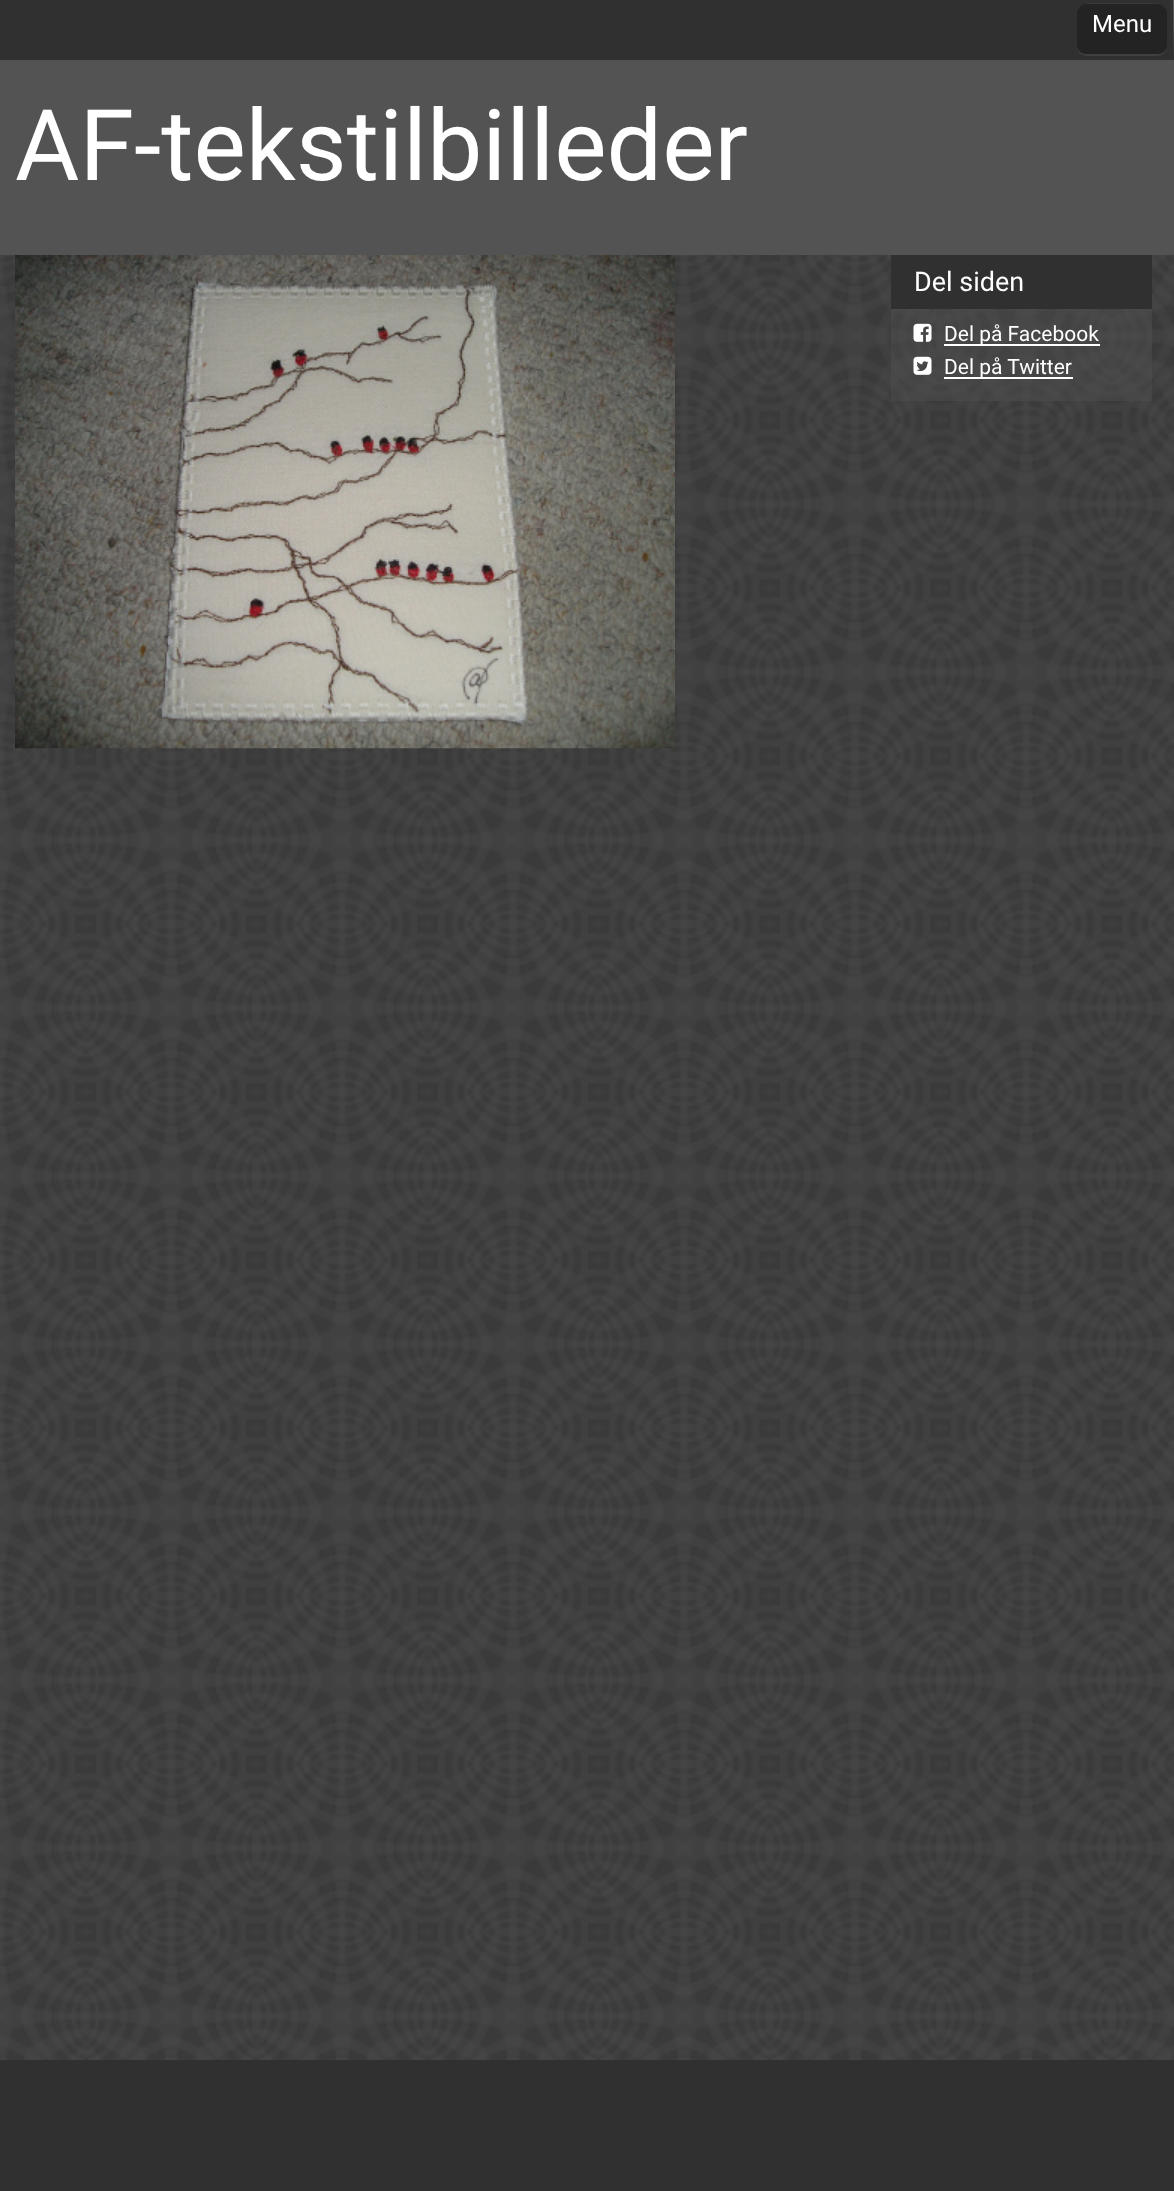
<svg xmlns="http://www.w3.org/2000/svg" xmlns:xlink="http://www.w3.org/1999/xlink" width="1174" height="2191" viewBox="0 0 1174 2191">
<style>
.cls-1{font:24px Roboto;fill:#ffffff}
.cls-2{font:98.75px Roboto;fill:#ffffff}
.cls-3{font:27px Roboto;fill:#ffffff}
.cls-4{font:21px Roboto;fill:#ffffff}
</style>
<defs>
<linearGradient id="g1" gradientUnits="userSpaceOnUse" x1="1174" y1="0" x2="1174" y2="60"><stop offset="0" stop-color="#626262"/><stop offset="1" stop-color="#303030"/></linearGradient>
</defs>
<rect width="100%" height="100%" fill="#3b3b3b"/>
<image xlink:href="image0.png" x="0" y="255" width="1174" height="1805"/>
<rect fill="#535353" x="0" y="60" width="1174" height="195"/>
<rect fill="#303030" x="0" y="0" width="1173" height="60"/>
<path fill="#404040" d="M1077 45C1077 58 1088 56 1098 56H1146C1156 56 1167 58 1167 45C1167 50 1163 54 1158 54H1086C1081 54 1077 50 1077 45Z"/>
<rect fill="#232323" x="1077" y="3" width="90" height="51" rx="9"/>
<path fill="#ffffff" fill-opacity="0.1" d="M1086 4H1158C1163 4 1167 9 1167 14C1167 1 1156 3 1146 3H1098C1088 3 1077 1 1077 14C1077 9 1081 4 1086 4Z"/>
<rect fill="url(#g1)" x="1173" y="0" width="1" height="60"/>
<image xlink:href="image1.png" x="15" y="255" width="660" height="494"/>
<rect fill="#303030" x="891" y="255" width="261" height="54"/>
<rect fill="#535353" fill-opacity="0.4" x="891" y="309" width="261" height="92"/>
<image xlink:href="image2.png" x="913" y="323" width="19" height="19"/>
<rect fill="#ffffff" x="944" y="344" width="156" height="2"/>
<image xlink:href="image3.png" x="913" y="356" width="19" height="19"/>
<rect fill="#ffffff" x="944" y="377" width="129" height="2"/>
<rect fill="#303030" x="0" y="2060" width="1174" height="131"/>
<text class="cls-1" x="1092" y="32">Menu</text>
<text class="cls-2" x="15" y="180">AF-tekstilbilleder</text>
<text class="cls-3" x="914" y="291">Del siden</text>
<text class="cls-4"><tspan x="944" y="341">Del på Facebook</tspan><tspan x="944" y="374">Del på Twitter</tspan></text>
</svg>
